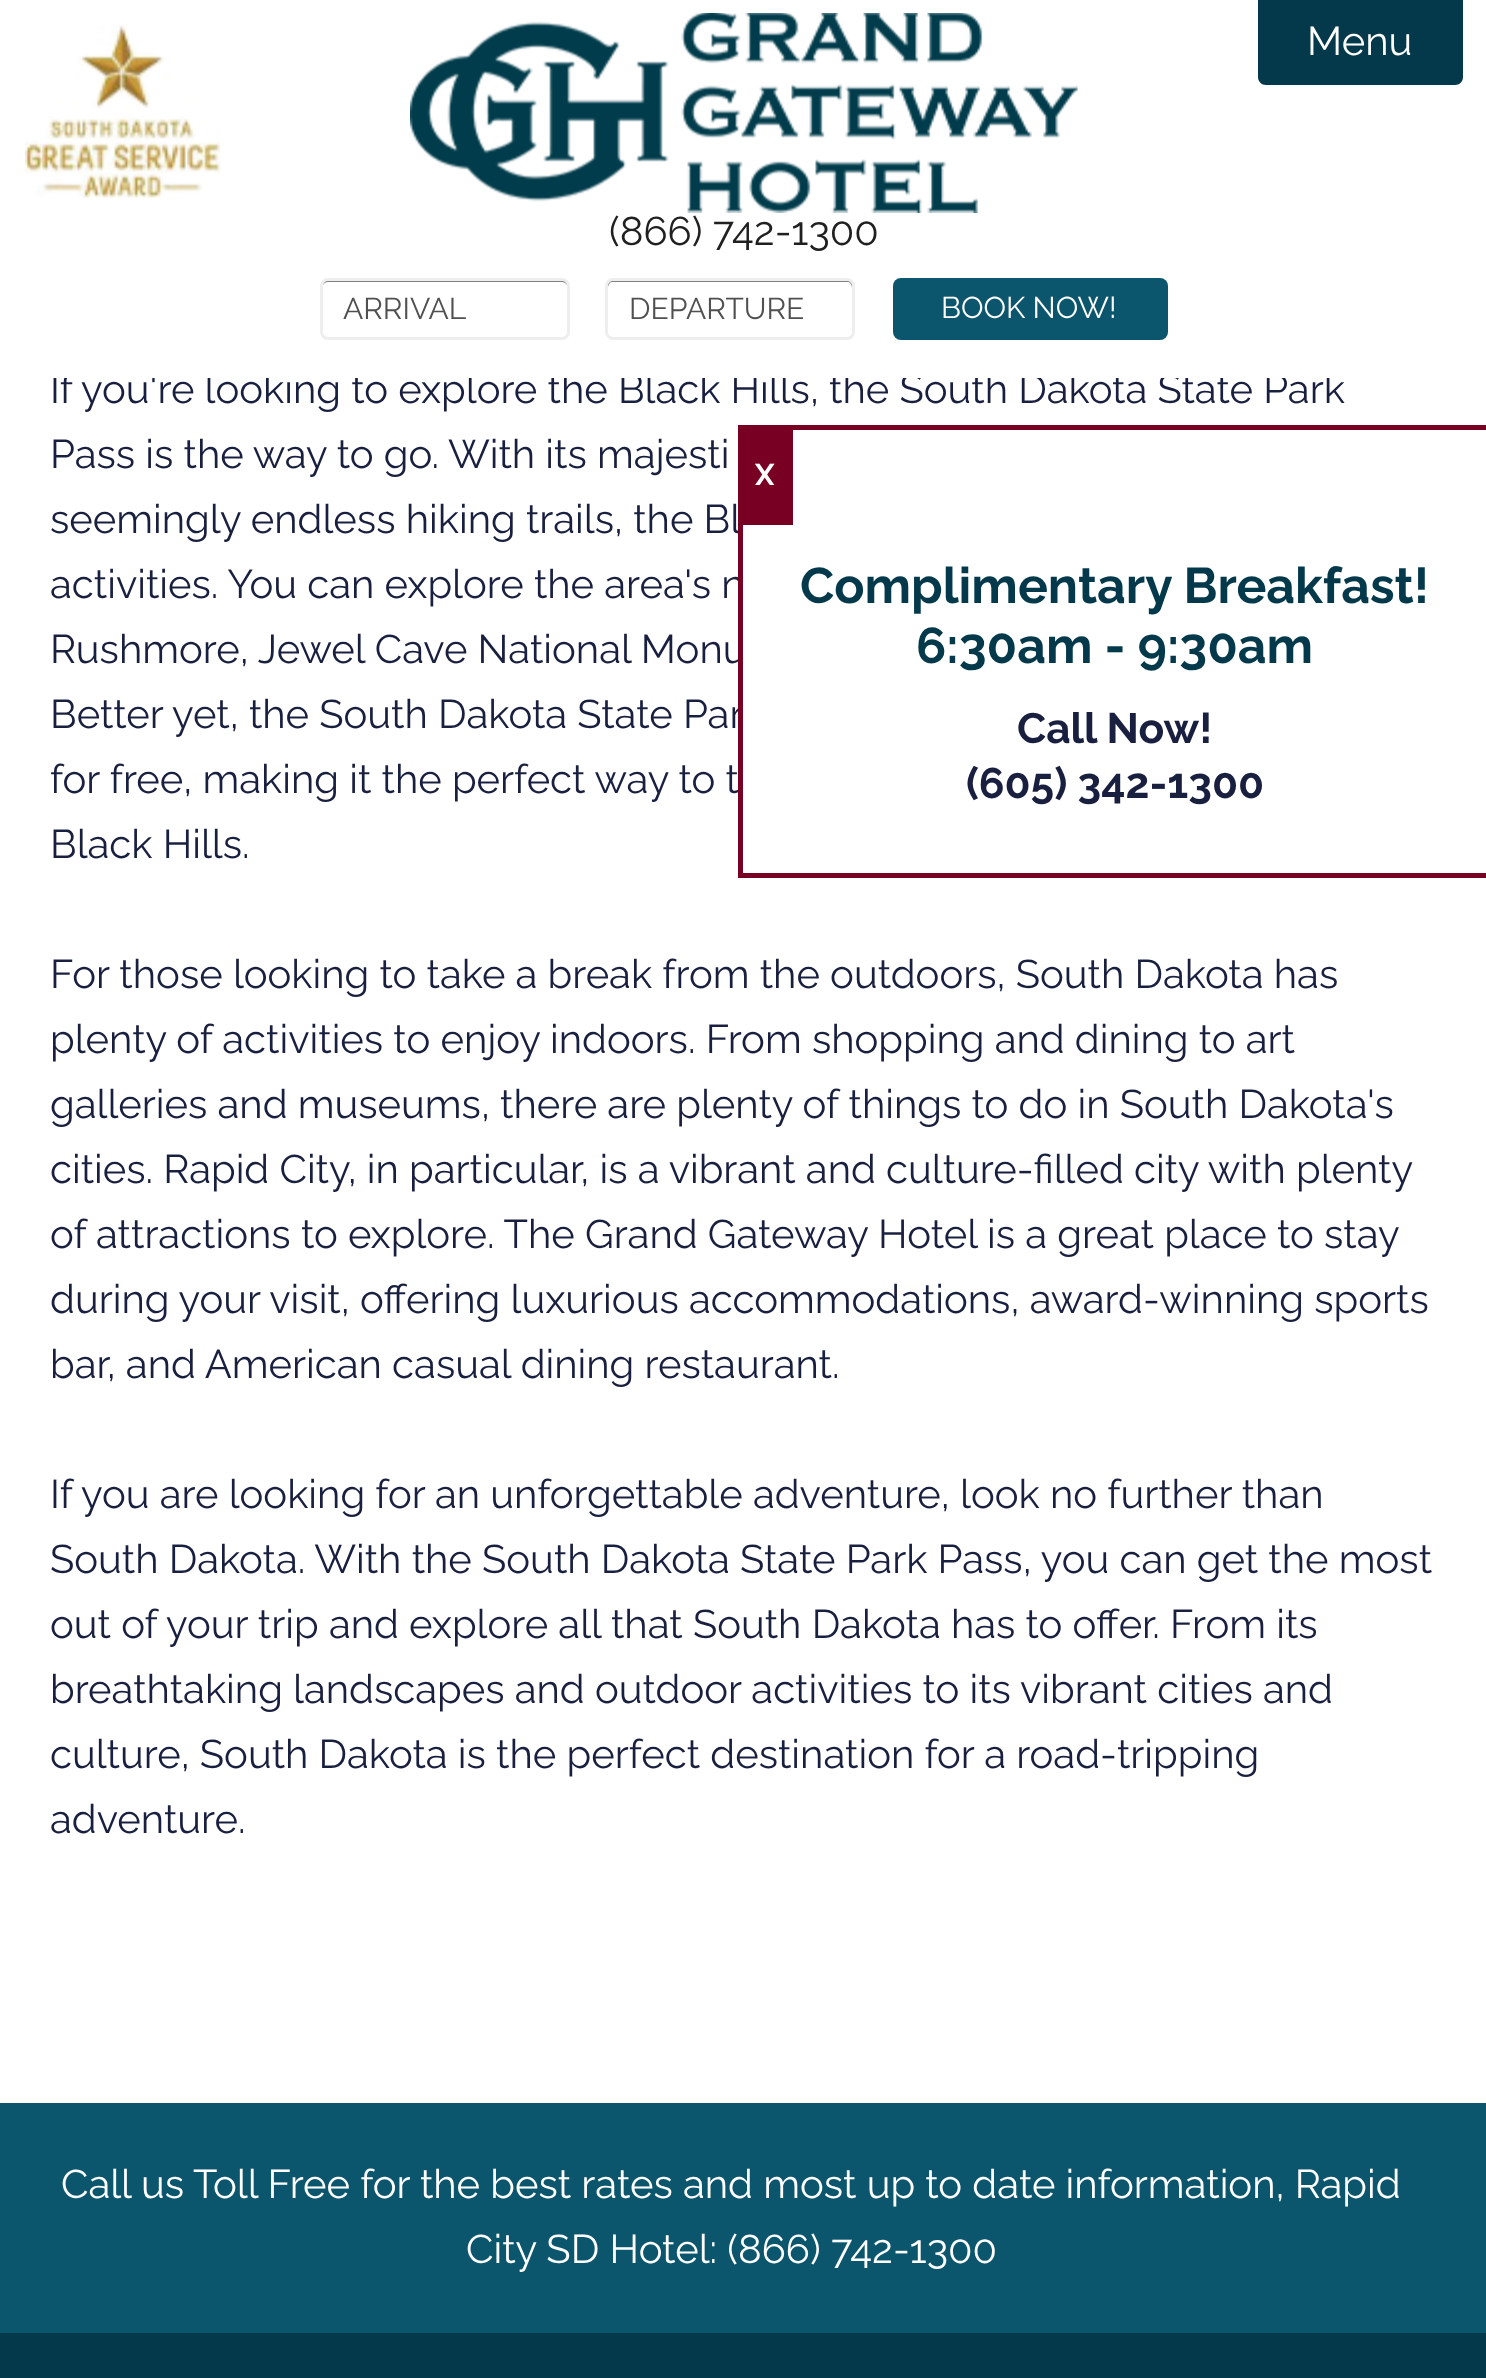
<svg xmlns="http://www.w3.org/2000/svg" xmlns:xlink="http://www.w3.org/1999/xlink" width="1486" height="2378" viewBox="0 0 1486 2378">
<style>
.cls-1{font:40px Raleway;fill:#ffffff}
.cls-2{font:40px Raleway;fill:#202020}
.cls-3{font:30px Raleway;fill:#505050}
.cls-4{font:30px Raleway;fill:#ffffff}
.cls-5{font:40px Raleway;fill:#181f3f}
.cls-6{font:bold 30px Raleway;fill:#ffffff}
.cls-7{font:bold 50px Raleway;fill:#03394a}
.cls-8{font:bold 42.5px Raleway;fill:#181f3f}
</style>
<rect width="100%" height="100%" fill="#ffffff"/>
<path fill="#03394a" d="M1258 0H1463V77C1463 81.5 1459.5 85 1455 85H1266C1261.5 85 1258 81.5 1258 77Z"/>
<image xlink:href="image0.png" x="25" y="24" width="195" height="174"/>
<image xlink:href="image1.png" x="410" y="13" width="668" height="200"/>
<path fill="#808080" d="M328 282H562C565 282 568 285 568 288V285C568 282 566 280 563 280H328C325 280 323 282 323 285C324 283 326 282 328 282Z"/>
<rect fill="none" stroke="#eeeeee" stroke-width="3" x="321.5" y="279.5" width="247" height="59" rx="6.5"/>
<path fill="#808080" d="M612 282H848C850 282 852 285 852 288V336C853 335 853 334 853 333V285C853 282 851 280 848 280H613C610 280 608 282 608 285V288C608 285 610 282 612 282Z"/>
<rect fill="none" stroke="#eeeeee" stroke-width="3" x="606.5" y="279.5" width="247" height="59" rx="6.5"/>
<rect fill="#0c566d" x="893" y="278" width="275" height="62" rx="8"/>
<rect fill="#780022" x="793" y="425" width="693" height="5"/>
<rect fill="#780022" x="738" y="873" width="748" height="5"/>
<rect fill="#0c566d" x="0" y="2103" width="1486" height="230"/>
<rect fill="#03394a" x="0" y="2333" width="1486" height="45"/>
<text class="cls-1" x="1307" y="55">Menu</text>
<text class="cls-2" x="609" y="245">(866) 742-1300</text>
<text class="cls-3" x="343" y="319">ARRIVAL</text>
<text class="cls-3" x="629" y="319">DEPARTURE</text>
<text class="cls-4" x="941" y="318">BOOK NOW!</text>
<text class="cls-5" x="50" y="403">If you're looking to explore the Black Hills, the South Dakota State Park</text>
<rect fill="#ffffff" x="53" y="373" width="1277" height="5"/>
<text class="cls-5"><tspan x="50" y="468">Pass is the way to go. With its majesti</tspan><tspan x="50" y="533">seemingly endless hiking trails, the Bl</tspan><tspan x="50" y="598">activities. You can explore the area's n</tspan><tspan x="50" y="663">Rushmore, Jewel Cave National Monu</tspan><tspan x="50" y="728">Better yet, the South Dakota State Par</tspan><tspan x="50" y="793">for free, making it the perfect way to t</tspan><tspan x="50" y="858">Black Hills.</tspan></text>
<text class="cls-5"><tspan x="50" y="988">For those looking to take a break from the outdoors, South Dakota has</tspan><tspan x="50" y="1053">plenty of activities to enjoy indoors. From shopping and dining to art</tspan><tspan x="50" y="1118">galleries and museums, there are plenty of things to do in South Dakota's</tspan><tspan x="50" y="1183">cities. Rapid City, in particular, is a vibrant and culture-filled city with plenty</tspan><tspan x="50" y="1248">of attractions to explore. The Grand Gateway Hotel is a great place to stay</tspan><tspan x="50" y="1313">during your visit, offering luxurious accommodations, award-winning sports</tspan><tspan x="50" y="1378">bar, and American casual dining restaurant.</tspan></text>
<text class="cls-5"><tspan x="50" y="1508">If you are looking for an unforgettable adventure, look no further than</tspan><tspan x="50" y="1573">South Dakota. With the South Dakota State Park Pass, you can get the most</tspan><tspan x="50" y="1638">out of your trip and explore all that South Dakota has to offer. From its</tspan><tspan x="50" y="1703">breathtaking landscapes and outdoor activities to its vibrant cities and</tspan><tspan x="50" y="1768">culture, South Dakota is the perfect destination for a road-tripping</tspan><tspan x="50" y="1833">adventure.</tspan></text>
<rect fill="#ffffff" x="743" y="642" width="2" height="22"/>
<rect fill="#780022" x="738" y="525" width="5" height="353"/>
<rect fill="#780022" x="738" y="425" width="55" height="100"/>
<text class="cls-6" x="755" y="485">X</text>
<text class="cls-7" x="800" y="603">Complimentary Breakfast!</text>
<text class="cls-7" x="916" y="663">6:30am - 9:30am</text>
<text class="cls-8" x="1017" y="743">Call Now!</text>
<text class="cls-8" x="966" y="798">(605) 342-1300</text>
<text class="cls-1" x="61" y="2198">Call us Toll Free for the best rates and most up to date information, Rapid</text>
<text class="cls-1" x="466" y="2263">City SD Hotel: (866) 742-1300</text>
</svg>
